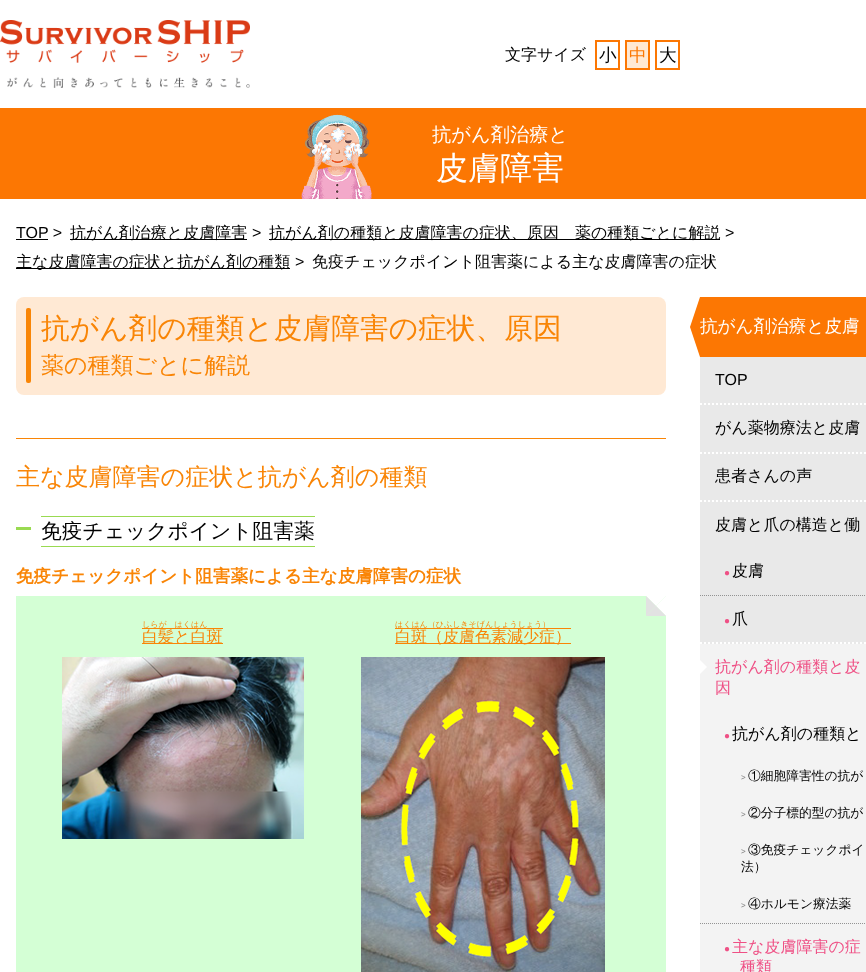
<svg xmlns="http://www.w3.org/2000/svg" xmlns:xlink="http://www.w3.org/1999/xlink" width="866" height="972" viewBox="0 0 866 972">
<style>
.cls-1{font:500 16px WenQuanYi Zen Hei;fill:#000000}
.cls-2{font:500 17.6px WenQuanYi Zen Hei;fill:#000000}
.cls-3{font:500 17.6px WenQuanYi Zen Hei;fill:#fc7703}
.cls-4{font:500 19.25px WenQuanYi Zen Hei;fill:#ffffff}
.cls-5{font:500 32px WenQuanYi Zen Hei;fill:#ffffff}
.cls-6{font:16px Liberation Sans;fill:#000000}
.cls-7{font:500 28.75px WenQuanYi Zen Hei;fill:#f98506}
.cls-8{font:500 23px WenQuanYi Zen Hei;fill:#f98506}
.cls-9{font:500 24px WenQuanYi Zen Hei;fill:#f98506}
.cls-10{font:500 20.75px WenQuanYi Zen Hei;fill:#000000}
.cls-11{font:bold 17.6px WenQuanYi Zen Hei;fill:#f98506}
.cls-12{font:500 8px WenQuanYi Zen Hei;fill:#f98506}
.cls-13{font:500 16px WenQuanYi Zen Hei;fill:#f98506}
.cls-14{font:500 17.6px WenQuanYi Zen Hei;fill:#ffffff}
.cls-15{font:10px Liberation Sans;fill:#ef5085}
.cls-16{font:500 16px WenQuanYi Zen Hei;fill:#ef5085}
.cls-17{font:8px Liberation Sans;fill:#7f7f7f}
.cls-18{font:500 12.75px WenQuanYi Zen Hei;fill:#000000}
</style>
<rect width="100%" height="100%" fill="#ffffff"/>
<image xlink:href="image0.png" x="0" y="20" width="250" height="68"/>
<rect fill="none" stroke="#fc7703" stroke-width="2" x="596" y="41" width="23" height="28"/>
<rect fill="#ffe9d4" stroke="#fc7703" stroke-width="2" x="626" y="41" width="23" height="28"/>
<rect fill="none" stroke="#fc7703" stroke-width="2" x="656" y="41" width="23" height="28"/>
<rect fill="#fc7703" x="0" y="108" width="866" height="91"/>
<image xlink:href="image1.png" x="301" y="114" width="71" height="85"/>
<rect fill="#000000" x="16" y="239" width="32" height="1"/>
<rect fill="#000000" x="70" y="239" width="177" height="1"/>
<rect fill="#000000" x="269" y="239" width="451" height="1"/>
<rect fill="#000000" x="16" y="268" width="274" height="1"/>
<rect fill="#ffe9d4" x="16" y="297" width="650" height="98" rx="8"/>
<rect fill="#f98506" x="26" y="308" width="5" height="75" rx="2"/>
<rect fill="#f98506" x="16" y="438" width="650" height="1"/>
<rect fill="#99da51" x="16" y="527" width="15" height="3"/>
<rect fill="#99da51" x="41" y="516" width="274" height="1"/>
<rect fill="#99da51" x="41" y="546" width="274" height="1"/>
<rect fill="#d4ffd5" x="16" y="596" width="650" height="376"/>
<path fill="#ffffff" d="M646 596H666L656 606Z"/>
<path fill="#ffffff" d="M666 596V616L656 606Z"/>
<path fill="#e2e2e2" d="M666 616H646L656 606Z"/>
<path fill="#e2e2e2" d="M646 616V596L656 606Z"/>
<rect fill="#f98506" x="142" y="628" width="81" height="1"/>
<rect fill="#f98506" x="142" y="643" width="81" height="1"/>
<image xlink:href="image2.png" x="62" y="657" width="242" height="182"/>
<rect fill="#f98506" x="395" y="628" width="176" height="1"/>
<rect fill="#f98506" x="395" y="643" width="176" height="1"/>
<image xlink:href="image3.png" x="361" y="657" width="244" height="315"/>
<rect fill="#fc7703" x="700" y="297" width="166" height="60"/>
<path fill="#fc7703" d="M700 297V357L690 327Z"/>
<rect fill="#e9e9e9" x="700" y="357" width="166" height="287"/>
<path fill="none" stroke="#ffffff" stroke-width="2" stroke-dasharray="2 2" d="M700 404H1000"/>
<path fill="none" stroke="#ffffff" stroke-width="2" stroke-dasharray="2 2" d="M700 453H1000"/>
<path fill="none" stroke="#ffffff" stroke-width="2" stroke-dasharray="2 2" d="M700 501H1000"/>
<path fill="none" stroke="#ffffff" stroke-width="2" stroke-dasharray="2 2" d="M700 643H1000"/>
<path fill="none" stroke="#939393" stroke-dasharray="1 1" d="M700 595.5H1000"/>
<rect fill="#f3f3f3" x="700" y="644" width="166" height="328"/>
<path fill="#ffffff" d="M700 674V660L707 667Z"/>
<path fill="none" stroke="#939393" stroke-dasharray="1 1" d="M700 923.5H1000"/>
<text class="cls-1" x="505" y="60">文字サイズ</text>
<text class="cls-2" x="599" y="61">小</text>
<text class="cls-3" x="629" y="61">中</text>
<text class="cls-2" x="659" y="61">大</text>
<text class="cls-4" x="432" y="141">抗がん剤治療と</text>
<text class="cls-5" x="436" y="179">皮膚障害</text>
<text class="cls-6" x="16" y="238">TOP &gt;</text>
<text class="cls-1" x="70" y="238">抗がん剤治療と皮膚障害</text>
<text class="cls-6" x="252" y="238">&gt;</text>
<text class="cls-1" x="269" y="238">抗がん剤の種類と皮膚障害の症状、原因　薬の種類ごとに解説</text>
<text class="cls-6" x="725" y="238">&gt;</text>
<text class="cls-1" x="16" y="267">主な皮膚障害の症状と抗がん剤の種類</text>
<text class="cls-6" x="295" y="267">&gt;</text>
<text class="cls-1" x="312" y="267">免疫チェックポイント阻害薬による主な皮膚障害の症状</text>
<text class="cls-7" x="41" y="338">抗がん剤の種類と皮膚障害の症状、原因</text>
<text class="cls-8" x="41" y="373">薬の種類ごとに解説</text>
<text class="cls-9" x="16" y="485">主な皮膚障害の症状と抗がん剤の種類</text>
<text class="cls-10" x="41" y="538">免疫チェックポイント阻害薬</text>
<text class="cls-11" x="16" y="582">免疫チェックポイント阻害薬による主な皮膚障害の症状</text>
<text class="cls-12" x="142" y="627">しらが　はくはん</text>
<text class="cls-13" x="142" y="642">白髪と白斑</text>
<text class="cls-12" x="395" y="627">はくはん（ひふしきそげんしょうしょう）</text>
<text class="cls-13" x="395" y="642">白斑（皮膚色素減少症）</text>
<text class="cls-14" x="700" y="332">抗がん剤治療と皮膚</text>
<text class="cls-6" x="715" y="385">TOP</text>
<text class="cls-1" x="715" y="433">がん薬物療法と皮膚</text>
<text class="cls-1" x="715" y="481">患者さんの声</text>
<text class="cls-1" x="715" y="530">皮膚と爪の構造と働</text>
<text class="cls-15" x="724" y="576">●</text>
<text class="cls-1" x="732" y="576">皮膚</text>
<text class="cls-15" x="724" y="624">●</text>
<text class="cls-1" x="732" y="624">爪</text>
<text class="cls-16"><tspan x="715" y="672">抗がん剤の種類と皮</tspan><tspan x="715" y="693">因</tspan></text>
<text class="cls-15" x="724" y="739">●</text>
<text class="cls-1" x="732" y="739">抗がん剤の種類と</text>
<text class="cls-17" x="741" y="780">&gt;</text>
<text class="cls-18" x="748" y="780">①細胞障害性の抗が</text>
<text class="cls-17" x="741" y="817">&gt;</text>
<text class="cls-18" x="748" y="817">②分子標的型の抗が</text>
<text class="cls-17" x="741" y="854">&gt;</text>
<text class="cls-18" x="748" y="854">③免疫チェックポイ</text>
<text class="cls-18" x="741" y="871">法）</text>
<text class="cls-17" x="741" y="908">&gt;</text>
<text class="cls-18" x="748" y="908">④ホルモン療法薬</text>
<text class="cls-15" x="724" y="952">●</text>
<text class="cls-16" x="732" y="952">主な皮膚障害の症</text>
<text class="cls-16" x="740" y="972">種類</text>
</svg>
